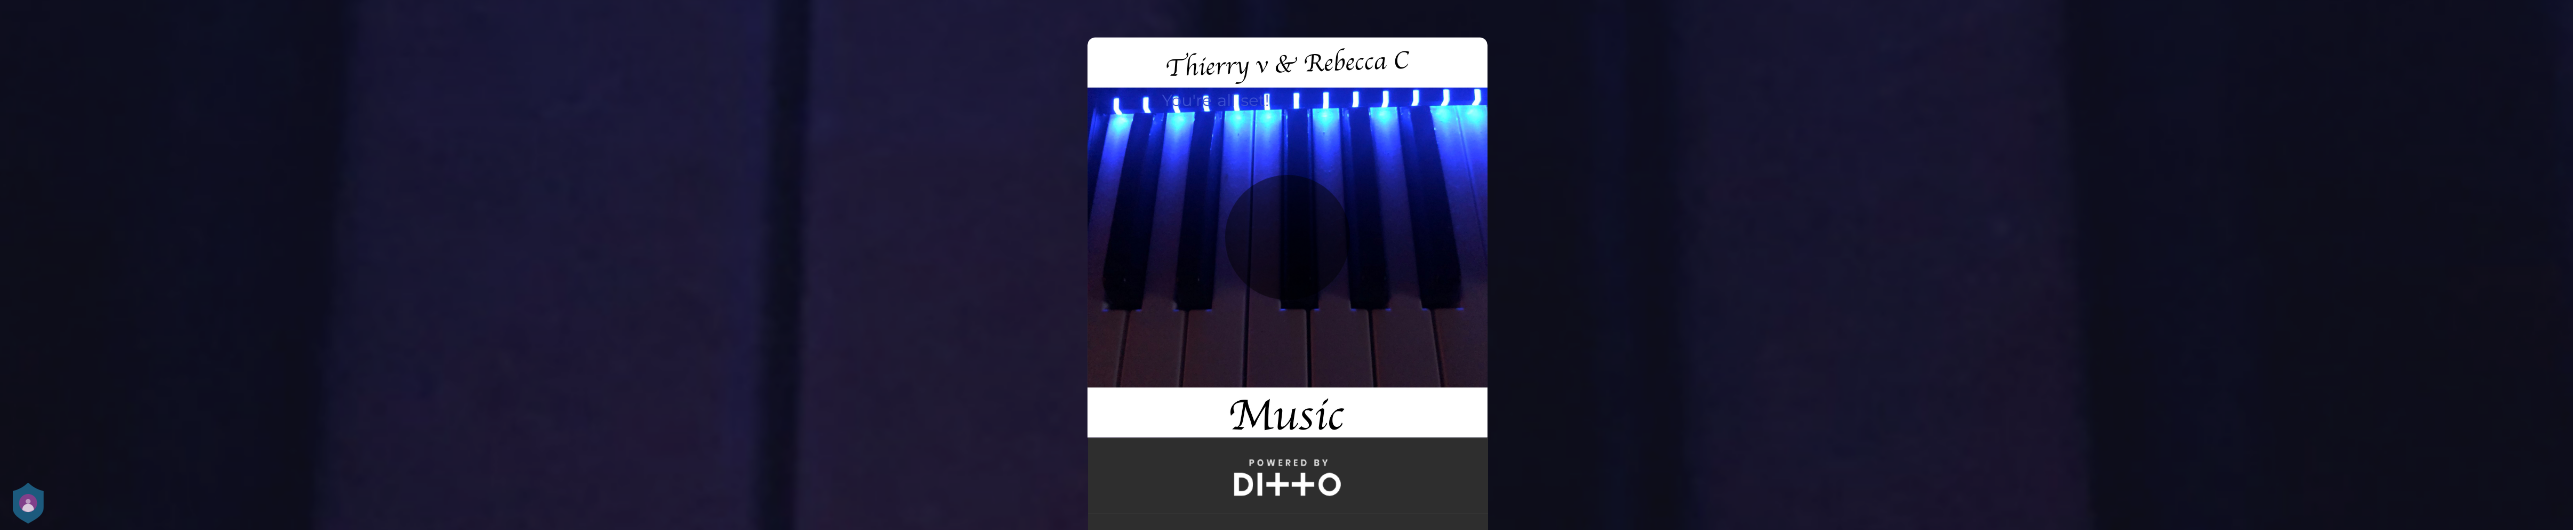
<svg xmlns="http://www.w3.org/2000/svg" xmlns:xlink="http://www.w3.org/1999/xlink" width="2573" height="530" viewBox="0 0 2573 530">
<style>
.cls-1{font:16.25px Montserrat;fill:#3d51d1}
</style>
<rect width="100%" height="100%" fill="#ffffff"/>
<image xlink:href="image0.png" x="0" y="0" width="2573" height="530"/>
<image xlink:href="image1.png" x="1087" y="37" width="401" height="401"/>
<circle fill="#000000" fill-opacity="0.45" cx="1287.5" cy="237.5" r="62.5"/>
<rect fill="#2e2e2e" x="1088" y="439" width="400" height="74"/>
<rect fill="#333333" x="1088" y="438" width="400" height="1"/>
<rect fill="#333333" x="1088" y="513" width="400" height="1"/>
<image xlink:href="image2.png" x="1233" y="459" width="108" height="38"/>
<rect fill="#2e2e2e" x="1088" y="514" width="400" height="16"/>
<image xlink:href="image3.png" x="13" y="483" width="31" height="41"/>
<text class="cls-1" x="1162" y="106" word-spacing="1">You're all set!</text>
</svg>
